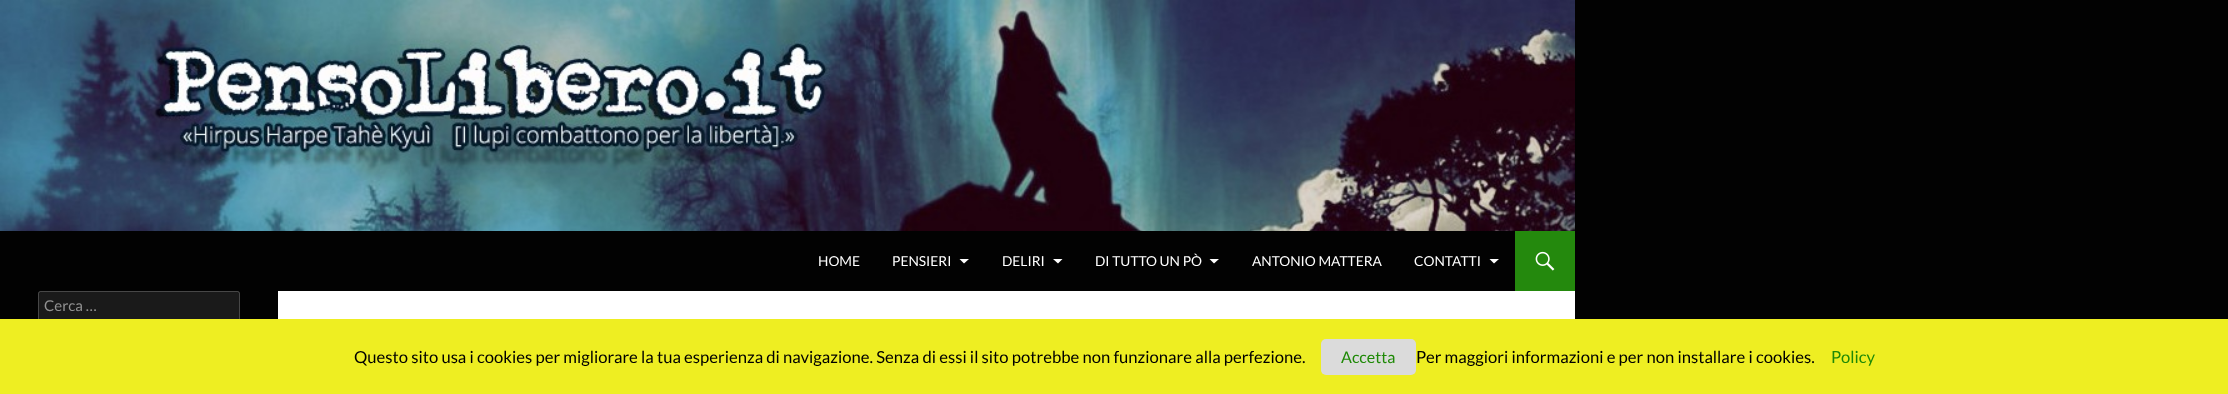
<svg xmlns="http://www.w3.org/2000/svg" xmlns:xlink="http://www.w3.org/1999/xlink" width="2228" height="394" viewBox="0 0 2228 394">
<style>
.cls-1{font:13.75px Lato;fill:#ffffff}
.cls-2{font:15px Lato;fill:#939393}
.cls-3{font:16.67px Lato;fill:#000000}
.cls-4{font:16px Lato;fill:#1e8906}
.cls-5{font:16.67px Lato;fill:#1e8906}
</style>
<rect width="100%" height="100%" fill="#020202"/>
<rect fill="#ffffff" x="278" y="291" width="1297" height="28"/>
<image xlink:href="image0.png" x="0" y="0" width="1575" height="231"/>
<path fill="#ffffff" d="M959.5 259L964 263.5L969 259Z"/>
<path fill="#ffffff" d="M1053 259L1058 263.5L1062.5 259Z"/>
<path fill="#ffffff" d="M1209.5 259L1214 263.5L1219 259Z"/>
<path fill="#ffffff" d="M1489.5 259L1494 263.5L1499 259Z"/>
<rect fill="#24890d" x="1515" y="231" width="60" height="60"/>
<image xlink:href="image1.png" x="1535" y="251" width="20" height="20"/>
<rect fill="#1a1a1a" x="38" y="291" width="202" height="30" rx="2.5"/>
<rect fill="none" stroke="#ffffff" stroke-opacity="0.2" x="38.5" y="291.5" width="201" height="29" rx="2"/>
<rect fill="#eeee22" x="0" y="319" width="2228" height="75"/>
<rect fill="#dbdbdb" x="1321" y="339" width="95" height="36" rx="5"/>
<text class="cls-1" x="818" y="266">HOME</text>
<text class="cls-1" x="892" y="266">PENSIERI</text>
<text class="cls-1" x="1002" y="266">DELIRI</text>
<text class="cls-1" x="1095" y="266">DI TUTTO UN PÒ</text>
<text class="cls-1" x="1252" y="266">ANTONIO MATTERA</text>
<text class="cls-1" x="1414" y="266">CONTATTI</text>
<text class="cls-2" x="44" y="311">Cerca …</text>
<text class="cls-3" x="354" y="363">Questo sito usa i cookies per migliorare la tua esperienza di navigazione. Senza di essi il sito potrebbe non funzionare alla perfezione.</text>
<text class="cls-4" x="1341" y="363">Accetta</text>
<text class="cls-3" x="1416" y="363">Per maggiori informazioni e per non installare i cookies.</text>
<text class="cls-5" x="1831" y="363">Policy</text>
</svg>
